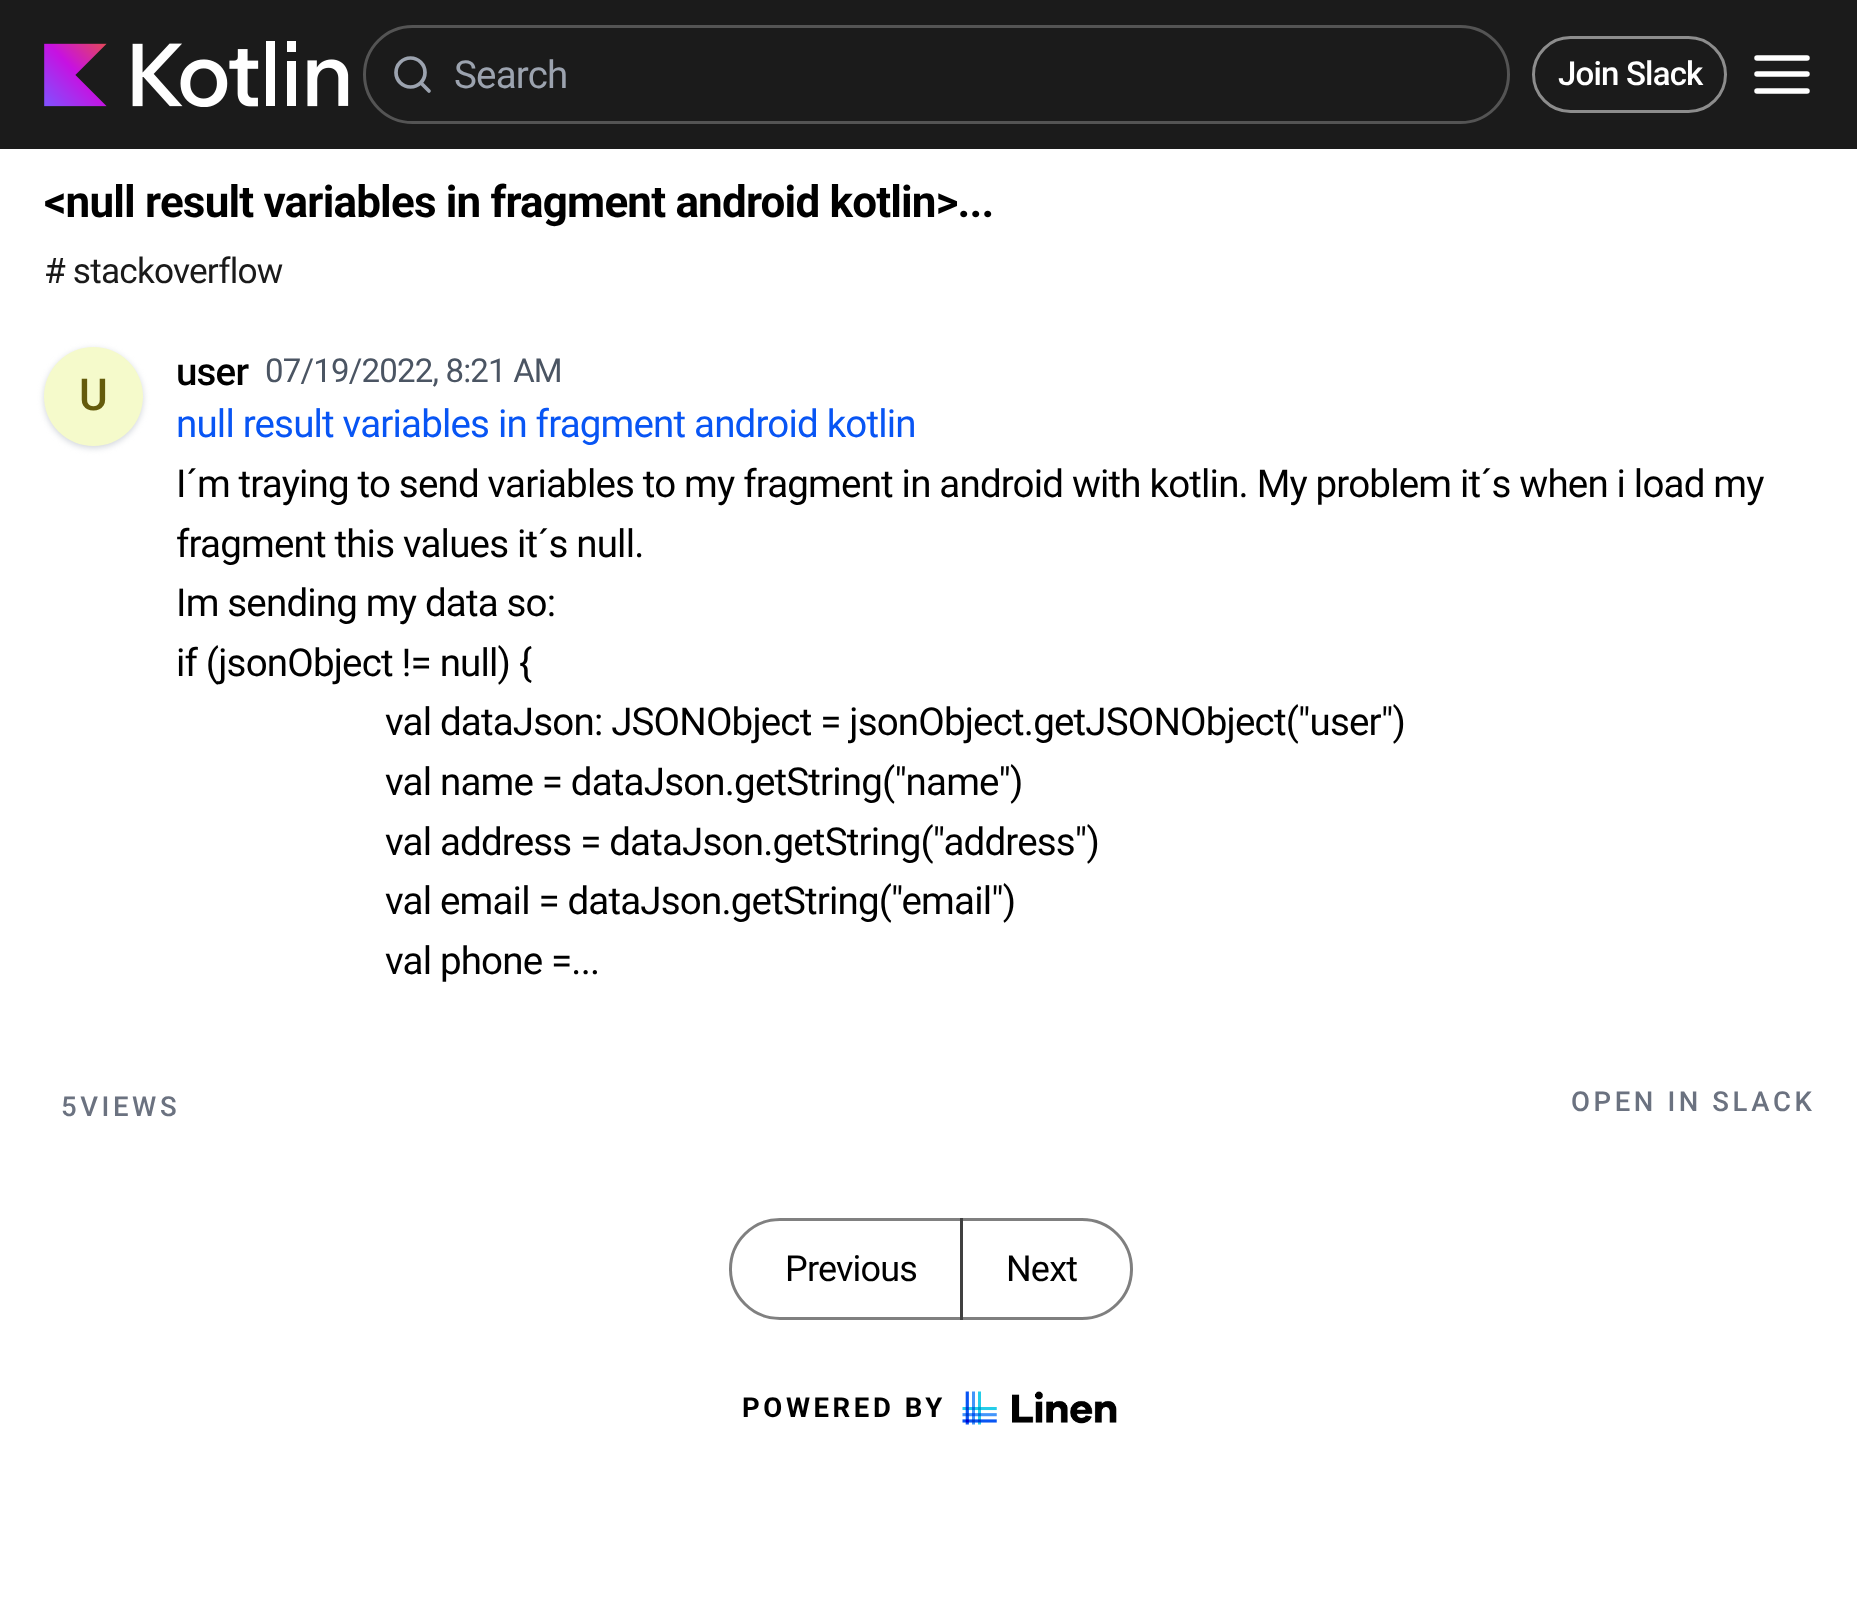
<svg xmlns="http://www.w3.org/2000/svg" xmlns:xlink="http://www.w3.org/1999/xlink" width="1857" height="1606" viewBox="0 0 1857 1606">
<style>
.cls-1{font:38.5px Roboto;letter-spacing:-0.82px;fill:#9ca3af}
.cls-2{font:500 33px Roboto;letter-spacing:-0.82px;fill:#ffffff}
.cls-3{font:bold 44px Roboto;letter-spacing:-0.82px;fill:#000000}
.cls-4{font:35.25px Roboto;letter-spacing:-0.82px;fill:#1a1a1a}
.cls-5{font:500 44px Roboto;letter-spacing:-0.82px;fill:#645b0c}
.cls-6{font:500 38.5px Roboto;letter-spacing:-0.82px;fill:#000000}
.cls-7{font:33px Roboto;letter-spacing:-0.82px;fill:#4b5563}
.cls-8{font:38.5px Roboto;letter-spacing:-0.82px;fill:#0855f4}
.cls-9{font:38.5px Roboto;letter-spacing:-0.82px;fill:#000000}
.cls-10{font:500 27.5px Roboto;letter-spacing:3.6px;fill:#6b7280}
.cls-11{font:36px Roboto;letter-spacing:-0.82px;fill:#000000}
.cls-12{font:bold 27.5px Roboto;letter-spacing:3.6px;fill:#000000}
</style>
<rect width="100%" height="100%" fill="#ffffff"/>
<rect fill="#1b1b1b" x="0" y="0" width="1857" height="149"/>
<image xlink:href="image0.png" x="44" y="41" width="305" height="66"/>
<rect fill="none" stroke="#545454" stroke-width="3" x="364.5" y="26.5" width="1144" height="96" rx="48"/>
<circle fill="none" stroke="#9ca3af" stroke-width="3.7" cx="410.5" cy="72.5" r="14.5"/>
<path fill="none" stroke="#9ca3af" stroke-width="3.7" stroke-linecap="round" stroke-linejoin="round" d="M429 91L421 83"/>
<rect fill="none" stroke="#8d8d8d" stroke-width="3" x="1533.5" y="37.5" width="192" height="74" rx="37"/>
<path fill="none" stroke="#ffffff" stroke-width="5.5" stroke-linecap="round" stroke-linejoin="round" d="M1757 74H1807M1757 58H1807M1757 91H1807"/>
<rect fill="#d1d5db" filter="blur(3px)" x="44" y="349" width="99" height="99" rx="49.5"/>
<circle fill="#f5facb" cx="93.5" cy="396.5" r="49.5"/>
<path fill="none" stroke="#808080" stroke-width="3" d="M780 1219.5H961.5V1318.5H780C752.5 1318.5 730.5 1296.5 730.5 1269C730.5 1241.5 752.5 1219.5 780 1219.5Z"/>
<path fill="none" stroke="#000000" stroke-opacity="0.5" stroke-width="3" d="M961.5 1219.5H1082C1109.5 1219.5 1131.5 1241.5 1131.5 1269C1131.5 1296.5 1109.5 1318.5 1082 1318.5H961.5Z"/>
<image xlink:href="image1.png" x="962" y="1391" width="155" height="34"/>
<text class="cls-1" x="454" y="88">Search</text>
<text class="cls-2" x="1558" y="85">Join Slack</text>
<text class="cls-3" x="44" y="217">&lt;null result variables in fragment android kotlin&gt;...</text>
<text class="cls-4" x="44" y="283"># stackoverflow</text>
<text class="cls-5" x="79" y="410">U</text>
<text class="cls-6" x="176" y="385">user</text>
<text class="cls-7" x="265" y="382">07/19/2022, 8:21 AM</text>
<text class="cls-8" x="176" y="437">null result variables in fragment android kotlin</text>
<text class="cls-9"><tspan x="176" y="497">I´m traying to send variables to my fragment in android with kotlin. My problem it´s when i load my</tspan><tspan x="176" y="557">fragment this values it´s null.</tspan><tspan x="176" y="616">Im sending my data so:</tspan><tspan x="176" y="676">if (jsonObject != null) {</tspan></text>
<text class="cls-9"><tspan x="385" y="735">val dataJson: JSONObject = jsonObject.getJSONObject("user")</tspan><tspan x="385" y="795">val name = dataJson.getString("name")</tspan><tspan x="385" y="855">val address = dataJson.getString("address")</tspan><tspan x="385" y="914">val email = dataJson.getString("email")</tspan><tspan x="385" y="974">val phone =...</tspan></text>
<text class="cls-10" x="61" y="1116">5VIEWS</text>
<text class="cls-10" x="1571" y="1111">OPEN IN SLACK</text>
<text class="cls-11" x="785" y="1281">Previous</text>
<text class="cls-11" x="1006" y="1281">Next</text>
<text class="cls-12" x="742" y="1417">POWERED BY</text>
</svg>
